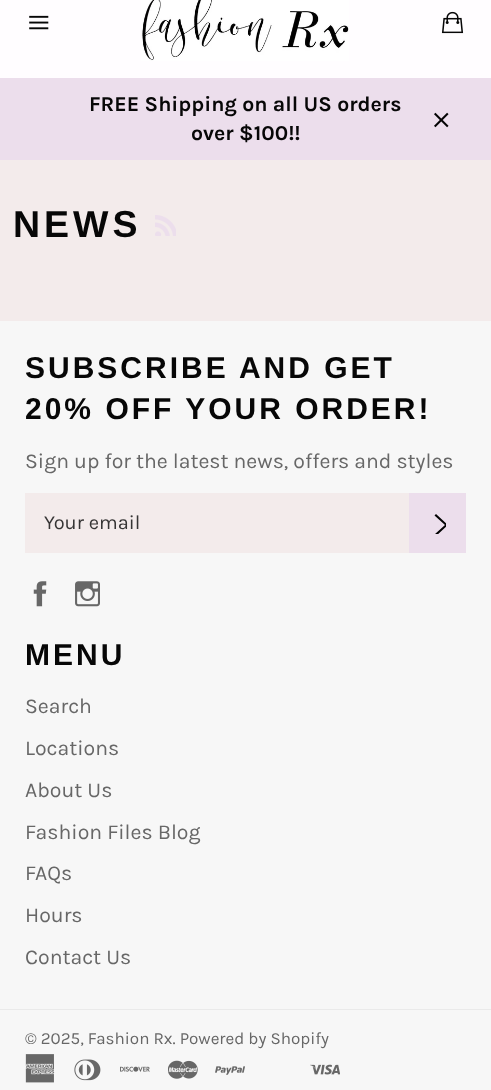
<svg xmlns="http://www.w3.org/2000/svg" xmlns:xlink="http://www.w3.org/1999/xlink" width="491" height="1090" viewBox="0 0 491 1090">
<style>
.cls-1{font:bold 21.25px Karla;fill:#070707}
.cls-2{font:bold 37.5px Liberation Sans;letter-spacing:4px;fill:#070707}
.cls-3{font:bold 30px Liberation Sans;letter-spacing:3px;fill:#070707}
.cls-4{font:21.25px Karla;fill:#676767}
.cls-5{font:20px Karla;fill:#363535}
.cls-6{font:17px Karla;fill:#676767}
</style>
<defs>
<clipPath id="clip1"><rect x="429" y="513" width="17" height="21"/></clipPath>
</defs>
<rect width="100%" height="100%" fill="#f3ebeb"/>
<rect fill="#fffdff" x="0" y="0" width="491" height="78"/>
<image xlink:href="image0.png" x="29" y="15" width="20" height="15"/>
<image xlink:href="image1.png" x="141" y="0" width="208" height="61"/>
<image xlink:href="image2.png" x="441" y="11" width="23" height="23"/>
<rect fill="#ecdeec" x="0" y="78" width="491" height="82"/>
<image xlink:href="image3.png" x="434" y="112" width="15" height="16"/>
<image xlink:href="image4.png" x="155" y="215" width="21" height="21"/>
<rect fill="#f7f7f7" x="0" y="321" width="491" height="769"/>
<rect fill="#f3ebeb" x="25" y="493" width="384" height="60"/>
<rect fill="#ecdeec" x="409" y="493" width="57" height="60"/>
<g clip-path="url(#clip1)">
<path fill="#030303" d="M434.5 515.5L436 514L448 525L436 536L434.5 534.5L445 525Z"/>
</g>
<image xlink:href="image5.png" x="33" y="581" width="14" height="26"/>
<image xlink:href="image6.png" x="75" y="581" width="25" height="26"/>
<rect fill="#eaeaea" x="0" y="1009" width="491" height="1"/>
<image xlink:href="image7.png" x="25" y="1054" width="30" height="29"/>
<image xlink:href="image8.png" x="74" y="1059" width="27" height="22"/>
<image xlink:href="image9.png" x="120" y="1066" width="30" height="6"/>
<image xlink:href="image10.png" x="168" y="1060" width="30" height="19"/>
<image xlink:href="image11.png" x="215" y="1066" width="30" height="9"/>
<image xlink:href="image12.png" x="310" y="1064" width="30" height="11"/>
<text class="cls-1" x="89" y="111">FREE Shipping on all US orders</text>
<text class="cls-1" x="191" y="140">over $100!!</text>
<text class="cls-2" x="13" y="237">NEWS</text>
<text class="cls-3"><tspan x="25" y="378">SUBSCRIBE AND GET</tspan><tspan x="25" y="419">20% OFF YOUR ORDER!</tspan></text>
<text class="cls-4" x="25" y="468">Sign up for the latest news, offers and styles</text>
<text class="cls-5" x="44" y="529">Your email</text>
<text class="cls-3" x="25" y="665">MENU</text>
<text class="cls-4"><tspan x="25" y="713">Search</tspan><tspan x="25" y="755">Locations</tspan><tspan x="25" y="797">About Us</tspan><tspan x="25" y="839">Fashion Files Blog</tspan><tspan x="25" y="880">FAQs</tspan><tspan x="25" y="922">Hours</tspan><tspan x="25" y="964">Contact Us</tspan></text>
<text class="cls-6" x="25" y="1044">© 2025, Fashion Rx. Powered by Shopify</text>
</svg>
